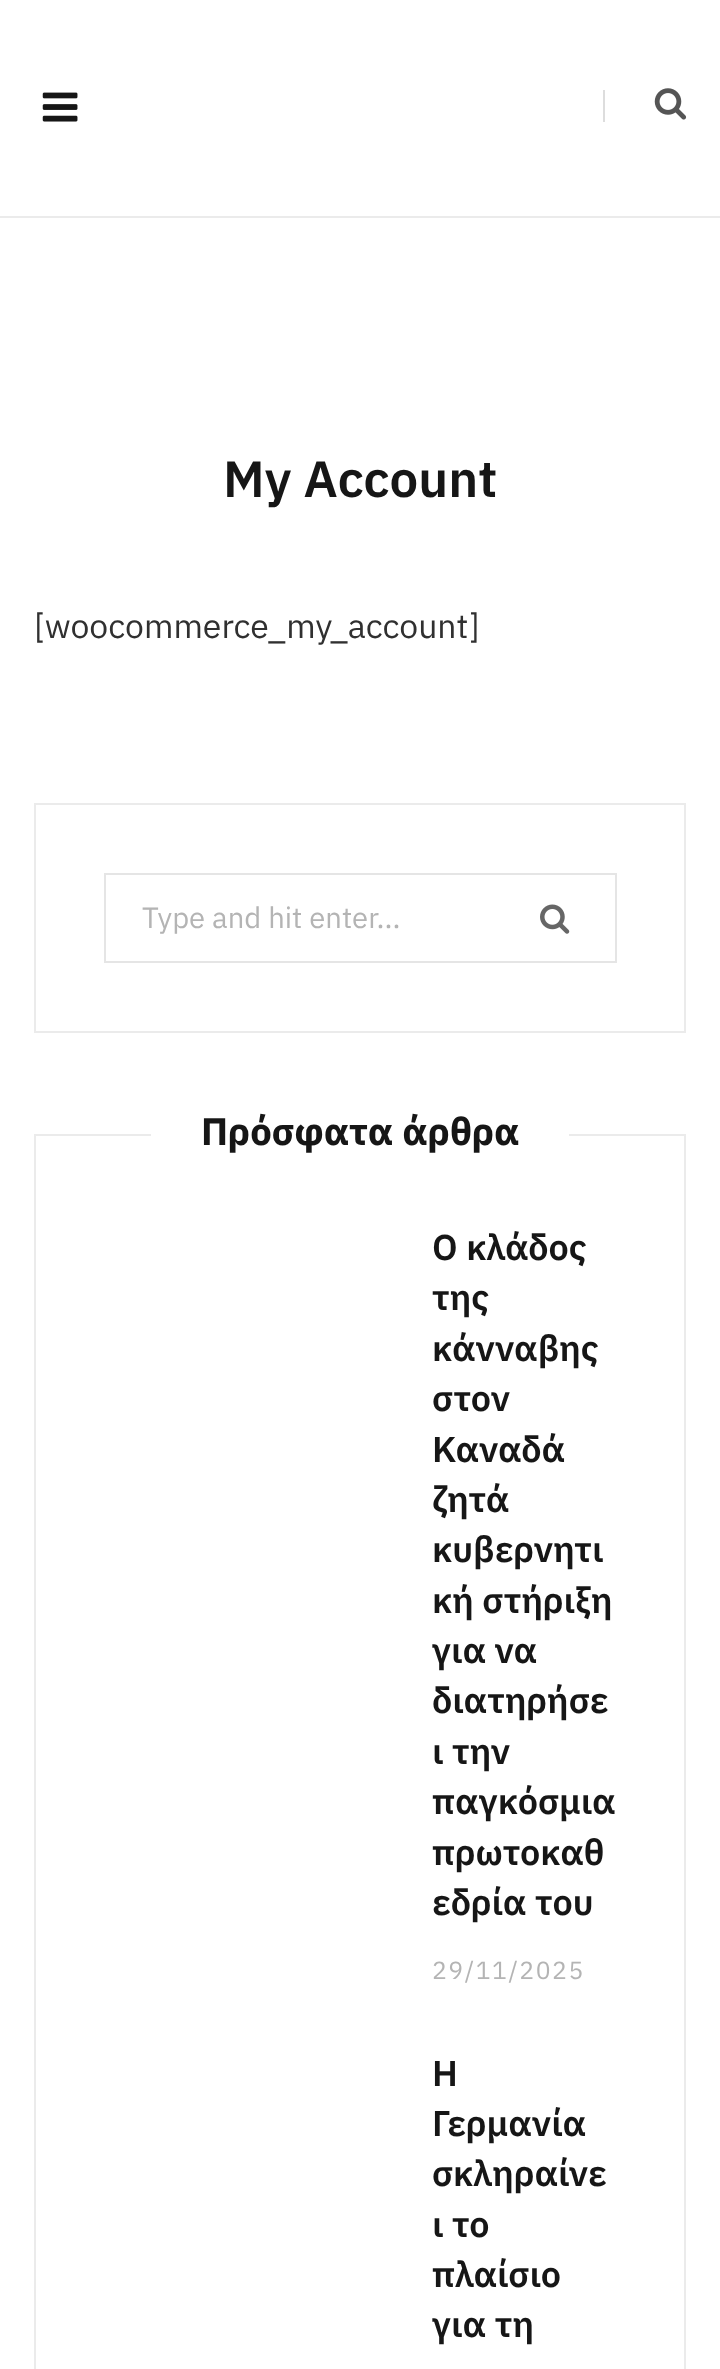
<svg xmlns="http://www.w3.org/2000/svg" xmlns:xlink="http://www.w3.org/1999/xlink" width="720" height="2369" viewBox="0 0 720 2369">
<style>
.cls-1{font:600 51px IBM Plex Sans;fill:#161616}
.cls-2{font:33.75px IBM Plex Sans;fill:#303030}
.cls-3{font:29.25px IBM Plex Sans;fill:#b4b4b4}
.cls-4{font:bold 38.25px IBM Plex Sans;fill:#161616}
.cls-5{font:600 36px IBM Plex Sans;fill:#161616}
.cls-6{font:24.75px IBM Plex Sans;letter-spacing:1.5px;fill:#b4b4b4}
</style>
<rect width="100%" height="100%" fill="#ffffff"/>
<rect fill="#ebebeb" x="0" y="216" width="720" height="2"/>
<image xlink:href="image0.png" x="42" y="92" width="36" height="30"/>
<rect fill="#dddddd" x="603" y="90" width="2" height="32"/>
<image xlink:href="image1.png" x="654" y="88" width="33" height="32"/>
<rect fill="none" stroke="#ebebeb" stroke-width="2" x="35" y="804" width="650" height="228"/>
<rect fill="none" stroke="#e5e5e5" stroke-width="2" x="105" y="874" width="511" height="88"/>
<image xlink:href="image2.png" x="540" y="904" width="30" height="30"/>
<rect fill="none" stroke="#ebebeb" stroke-width="2" x="35" y="1135" width="650" height="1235"/>
<rect fill="#ffffff" x="151" y="1134" width="418" height="2"/>
<text class="cls-1" x="223" y="497">My Account</text>
<text class="cls-2" x="34" y="638">[woocommerce_my_account]</text>
<text class="cls-3" x="142" y="928">Type and hit enter...</text>
<text class="cls-4" x="201" y="1145">Πρόσφατα άρθρα</text>
<text class="cls-5"><tspan x="432" y="1260">Ο κλάδος</tspan><tspan x="432" y="1310">της</tspan><tspan x="432" y="1361">κάνναβης</tspan><tspan x="432" y="1411">στον</tspan><tspan x="432" y="1462">Καναδά</tspan><tspan x="432" y="1512">ζητά</tspan><tspan x="432" y="1562">κυβερνητι</tspan><tspan x="432" y="1613">κή στήριξη</tspan><tspan x="432" y="1663">για να</tspan><tspan x="432" y="1713">διατηρήσε</tspan><tspan x="432" y="1764">ι την</tspan><tspan x="432" y="1814">παγκόσμια</tspan><tspan x="432" y="1865">πρωτοκαθ</tspan><tspan x="432" y="1915">εδρία του</tspan></text>
<text class="cls-6" x="432" y="1979">29/11/2025</text>
<text class="cls-5"><tspan x="432" y="2086">Η</tspan><tspan x="432" y="2136">Γερμανία</tspan><tspan x="432" y="2186">σκληραίνε</tspan><tspan x="432" y="2237">ι το</tspan><tspan x="432" y="2287">πλαίσιο</tspan><tspan x="432" y="2337">για τη</tspan></text>
</svg>
